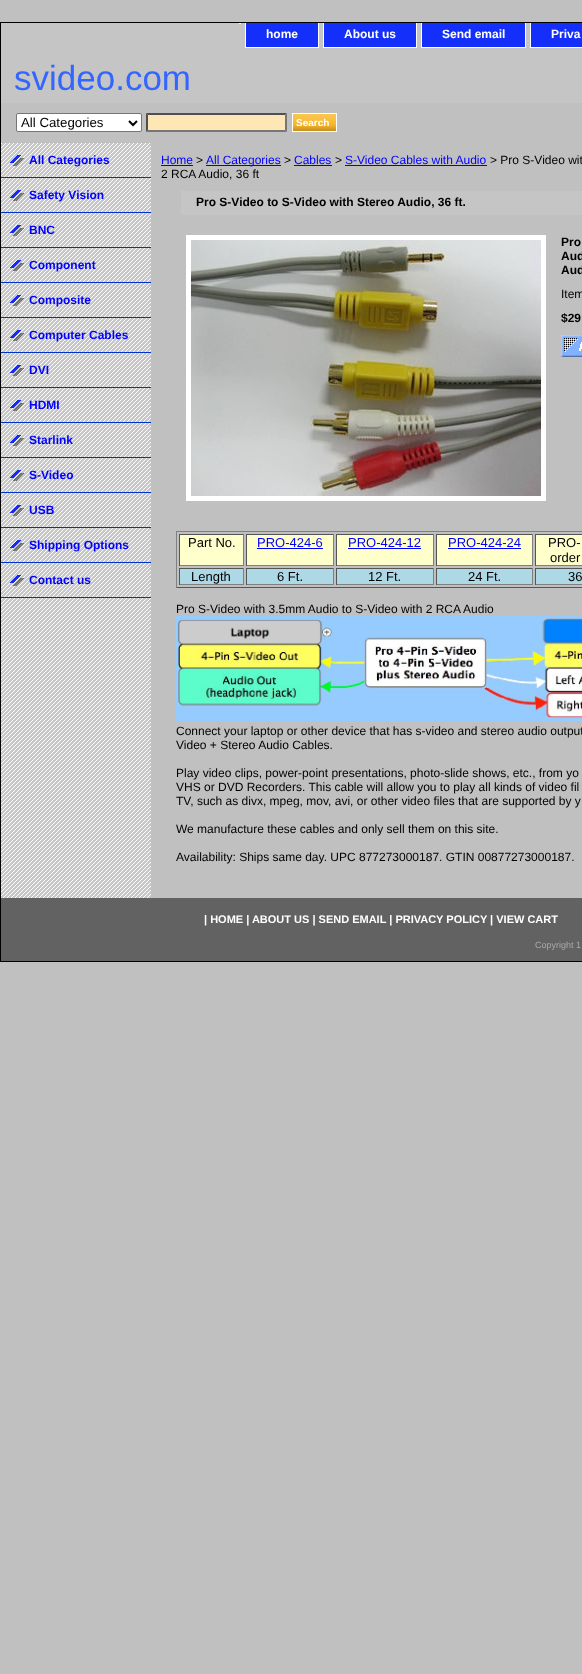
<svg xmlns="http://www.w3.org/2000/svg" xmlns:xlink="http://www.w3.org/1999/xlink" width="582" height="1674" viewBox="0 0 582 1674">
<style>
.cls-1{font:bold 12px Liberation Sans;fill:#ffffff}
.cls-2{font:35px Liberation Sans;fill:#3366ff}
.cls-3{font:13.25px Liberation Sans;fill:#000000}
.cls-4{font:bold 10px Liberation Sans;fill:#ffffff}
.cls-5{font:bold 12px Liberation Sans;fill:#0000ff}
.cls-6{font:12px Liberation Sans;fill:#0000ff}
.cls-7{font:12px Liberation Sans;fill:#000000}
.cls-8{font:bold 12px Liberation Sans;fill:#000000}
.cls-9{font:13px Liberation Sans;fill:#000000}
.cls-10{font:13px Liberation Sans;fill:#0000ff}
.cls-11{font:bold 11px Liberation Sans;fill:#ffffff}
.cls-12{font:9px Liberation Sans;fill:#aaaaaa}
</style>
<rect width="100%" height="100%" fill="#c0c0c0"/>
<image xlink:href="image0.png" x="1" y="143" width="150" height="755"/>
<rect fill="none" stroke="#000000" x="0.5" y="22.5" width="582" height="939"/>
<rect fill="#c5c5c5" x="1" y="23" width="581" height="80"/>
<rect fill="#ffffff" x="239" y="23" width="2" height="1"/>
<rect fill="#ffffff" x="318" y="23" width="1" height="25"/>
<rect fill="#ffffff" x="245" y="47" width="74" height="1"/>
<rect fill="#ffffff" x="245" y="23" width="1" height="25"/>
<rect fill="#142ffa" x="246" y="23" width="72" height="24"/>
<rect fill="#ffffff" x="416" y="23" width="1" height="25"/>
<rect fill="#ffffff" x="323" y="47" width="94" height="1"/>
<rect fill="#ffffff" x="323" y="23" width="1" height="25"/>
<rect fill="#142ffa" x="324" y="23" width="92" height="24"/>
<rect fill="#ffffff" x="525" y="23" width="1" height="25"/>
<rect fill="#ffffff" x="421" y="47" width="105" height="1"/>
<rect fill="#ffffff" x="421" y="23" width="1" height="25"/>
<rect fill="#142ffa" x="422" y="23" width="103" height="24"/>
<rect fill="#ffffff" x="530" y="47" width="52" height="1"/>
<rect fill="#ffffff" x="530" y="23" width="1" height="25"/>
<rect fill="#142ffa" x="531" y="23" width="51" height="24"/>
<rect fill="#ffffff" stroke="#767676" x="16.5" y="113.5" width="125" height="18" rx="1.5"/>
<path fill="none" stroke="#000000" stroke-width="2" d="M129 121L133 125L137 121"/>
<rect fill="#ffe7b5" x="146" y="113" width="141" height="19"/>
<path fill="#4f4f4f" d="M146 113H287L285 115H148Z"/>
<path fill="#767676" d="M287 113V132L285 130V115Z"/>
<path fill="#767676" d="M287 132H146L148 130H285Z"/>
<path fill="#4f4f4f" d="M146 132V113L148 115V130Z"/>
<image xlink:href="image1.png" x="293" y="114" width="43" height="17"/>
<rect fill="none" stroke="#ffffff" x="292.5" y="113.5" width="44" height="18"/>
<image xlink:href="image2.png" x="10" y="155" width="14" height="11"/>
<rect fill="#0033cc" x="1" y="177" width="150" height="1"/>
<image xlink:href="image3.png" x="10" y="190" width="14" height="11"/>
<rect fill="#0033cc" x="1" y="212" width="150" height="1"/>
<image xlink:href="image4.png" x="10" y="225" width="14" height="11"/>
<rect fill="#0033cc" x="1" y="247" width="150" height="1"/>
<image xlink:href="image5.png" x="10" y="260" width="14" height="11"/>
<rect fill="#0033cc" x="1" y="282" width="150" height="1"/>
<image xlink:href="image2.png" x="10" y="295" width="14" height="11"/>
<rect fill="#0033cc" x="1" y="317" width="150" height="1"/>
<image xlink:href="image3.png" x="10" y="330" width="14" height="11"/>
<rect fill="#0033cc" x="1" y="352" width="150" height="1"/>
<image xlink:href="image4.png" x="10" y="365" width="14" height="11"/>
<rect fill="#0033cc" x="1" y="387" width="150" height="1"/>
<image xlink:href="image5.png" x="10" y="400" width="14" height="11"/>
<rect fill="#0033cc" x="1" y="422" width="150" height="1"/>
<image xlink:href="image2.png" x="10" y="435" width="14" height="11"/>
<rect fill="#0033cc" x="1" y="457" width="150" height="1"/>
<image xlink:href="image3.png" x="10" y="470" width="14" height="11"/>
<rect fill="#0033cc" x="1" y="492" width="150" height="1"/>
<image xlink:href="image4.png" x="10" y="505" width="14" height="11"/>
<rect fill="#0033cc" x="1" y="527" width="150" height="1"/>
<image xlink:href="image5.png" x="10" y="540" width="14" height="11"/>
<rect fill="#0033cc" x="1" y="562" width="150" height="1"/>
<image xlink:href="image2.png" x="10" y="575" width="14" height="11"/>
<rect fill="#0033cc" x="1" y="597" width="150" height="1"/>
<rect fill="#0000ff" x="161" y="165" width="32" height="1"/>
<rect fill="#0000ff" x="206" y="165" width="75" height="1"/>
<rect fill="#0000ff" x="294" y="165" width="38" height="1"/>
<rect fill="#0000ff" x="345" y="165" width="142" height="1"/>
<rect fill="#c5c5c5" x="181" y="191" width="401" height="24"/>
<rect fill="#ffffff" x="186" y="235" width="360" height="266"/>
<image xlink:href="image6.png" x="191" y="240" width="350" height="256"/>
<image xlink:href="image7.png" x="561" y="335" width="21" height="22"/>
<rect fill="#808080" x="176" y="531" width="406" height="1"/>
<rect fill="#555555" x="176" y="587" width="406" height="1"/>
<rect fill="#808080" x="176" y="531" width="1" height="57"/>
<rect fill="#ffffcc" x="180" y="535" width="63" height="30"/>
<rect fill="#555555" x="179" y="534" width="65" height="1"/>
<rect fill="#808080" x="243" y="534" width="1" height="32"/>
<rect fill="#808080" x="179" y="565" width="65" height="1"/>
<rect fill="#555555" x="179" y="534" width="1" height="32"/>
<rect fill="#ffffcc" x="247" y="535" width="86" height="30"/>
<rect fill="#555555" x="246" y="534" width="88" height="1"/>
<rect fill="#808080" x="333" y="534" width="1" height="32"/>
<rect fill="#808080" x="246" y="565" width="88" height="1"/>
<rect fill="#555555" x="246" y="534" width="1" height="32"/>
<rect fill="#0000ff" x="257" y="548" width="66" height="1"/>
<rect fill="#ffffcc" x="337" y="535" width="96" height="30"/>
<rect fill="#555555" x="336" y="534" width="98" height="1"/>
<rect fill="#808080" x="433" y="534" width="1" height="32"/>
<rect fill="#808080" x="336" y="565" width="98" height="1"/>
<rect fill="#555555" x="336" y="534" width="1" height="32"/>
<rect fill="#0000ff" x="348" y="548" width="73" height="1"/>
<rect fill="#ffffcc" x="437" y="535" width="95" height="30"/>
<rect fill="#555555" x="436" y="534" width="97" height="1"/>
<rect fill="#808080" x="532" y="534" width="1" height="32"/>
<rect fill="#808080" x="436" y="565" width="97" height="1"/>
<rect fill="#555555" x="436" y="534" width="1" height="32"/>
<rect fill="#0000ff" x="448" y="548" width="73" height="1"/>
<rect fill="#ffffcc" x="536" y="535" width="46" height="30"/>
<rect fill="#555555" x="535" y="534" width="47" height="1"/>
<rect fill="#808080" x="535" y="565" width="47" height="1"/>
<rect fill="#555555" x="535" y="534" width="1" height="32"/>
<rect fill="#add8e6" x="180" y="569" width="63" height="15"/>
<rect fill="#555555" x="179" y="568" width="65" height="1"/>
<rect fill="#808080" x="243" y="568" width="1" height="17"/>
<rect fill="#808080" x="179" y="584" width="65" height="1"/>
<rect fill="#555555" x="179" y="568" width="1" height="17"/>
<rect fill="#add8e6" x="247" y="569" width="86" height="15"/>
<rect fill="#555555" x="246" y="568" width="88" height="1"/>
<rect fill="#808080" x="333" y="568" width="1" height="17"/>
<rect fill="#808080" x="246" y="584" width="88" height="1"/>
<rect fill="#555555" x="246" y="568" width="1" height="17"/>
<rect fill="#add8e6" x="337" y="569" width="96" height="15"/>
<rect fill="#555555" x="336" y="568" width="98" height="1"/>
<rect fill="#808080" x="433" y="568" width="1" height="17"/>
<rect fill="#808080" x="336" y="584" width="98" height="1"/>
<rect fill="#555555" x="336" y="568" width="1" height="17"/>
<rect fill="#add8e6" x="437" y="569" width="95" height="15"/>
<rect fill="#555555" x="436" y="568" width="97" height="1"/>
<rect fill="#808080" x="532" y="568" width="1" height="17"/>
<rect fill="#808080" x="436" y="584" width="97" height="1"/>
<rect fill="#555555" x="436" y="568" width="1" height="17"/>
<rect fill="#add8e6" x="536" y="569" width="46" height="15"/>
<rect fill="#555555" x="535" y="568" width="47" height="1"/>
<rect fill="#808080" x="535" y="584" width="47" height="1"/>
<rect fill="#555555" x="535" y="568" width="1" height="17"/>
<image xlink:href="image8.png" x="176" y="616" width="406" height="105"/>
<rect fill="#626262" x="1" y="898" width="581" height="63"/>
<text class="cls-1" x="266" y="38">home</text>
<text class="cls-1" x="344" y="38">About us</text>
<text class="cls-1" x="442" y="38">Send email</text>
<text class="cls-1" x="551" y="38">Priva</text>
<text class="cls-2" x="14" y="90">svideo.com</text>
<text class="cls-3" x="21" y="127">All Categories</text>
<text class="cls-4" x="296" y="126">Search</text>
<text class="cls-5" x="29" y="164">All Categories</text>
<text class="cls-5" x="29" y="199">Safety Vision</text>
<text class="cls-5" x="29" y="234">BNC</text>
<text class="cls-5" x="29" y="269">Component</text>
<text class="cls-5" x="29" y="304">Composite</text>
<text class="cls-5" x="29" y="339">Computer Cables</text>
<text class="cls-5" x="29" y="374">DVI</text>
<text class="cls-5" x="29" y="409">HDMI</text>
<text class="cls-5" x="29" y="444">Starlink</text>
<text class="cls-5" x="29" y="479">S-Video</text>
<text class="cls-5" x="29" y="514">USB</text>
<text class="cls-5" x="29" y="549">Shipping Options</text>
<text class="cls-5" x="29" y="584">Contact us</text>
<text class="cls-6" x="161" y="164">Home</text>
<text class="cls-7" x="196" y="164">&gt;</text>
<text class="cls-6" x="206" y="164">All Categories</text>
<text class="cls-7" x="284" y="164">&gt;</text>
<text class="cls-6" x="294" y="164">Cables</text>
<text class="cls-7" x="335" y="164">&gt;</text>
<text class="cls-6" x="345" y="164">S-Video Cables with Audio</text>
<text class="cls-7" x="490" y="164">&gt; Pro S-Video wit</text>
<text class="cls-7" x="161" y="178">2 RCA Audio, 36 ft</text>
<text class="cls-8" x="196" y="206">Pro S-Video to S-Video with Stereo Audio, 36 ft.</text>
<text class="cls-8"><tspan x="561" y="246">Pro</tspan><tspan x="561" y="260">Aud</tspan><tspan x="561" y="274">Aud</tspan></text>
<text class="cls-7" x="561" y="298">Item</text>
<text class="cls-8" x="561" y="322">$29</text>
<text class="cls-9" x="188" y="547">Part No.</text>
<text class="cls-10" x="257" y="547">PRO-424-6</text>
<text class="cls-10" x="348" y="547">PRO-424-12</text>
<text class="cls-10" x="448" y="547">PRO-424-24</text>
<text class="cls-9" x="548" y="547">PRO-</text>
<text class="cls-9" x="550" y="562">order</text>
<text class="cls-9" x="191" y="581">Length</text>
<text class="cls-9" x="277" y="581">6 Ft.</text>
<text class="cls-9" x="368" y="581">12 Ft.</text>
<text class="cls-9" x="468" y="581">24 Ft.</text>
<text class="cls-9" x="568" y="581">36</text>
<text class="cls-7" x="176" y="613">Pro S-Video with 3.5mm Audio to S-Video with 2 RCA Audio</text>
<text class="cls-7"><tspan x="176" y="735">Connect your laptop or other device that has s-video and stereo audio output</tspan><tspan x="176" y="749">Video + Stereo Audio Cables.</tspan></text>
<text class="cls-7"><tspan x="176" y="777">Play video clips, power-point presentations, photo-slide shows, etc., from yo</tspan><tspan x="176" y="791">VHS or DVD Recorders. This cable will allow you to play all kinds of video fil</tspan><tspan x="176" y="805">TV, such as divx, mpeg, mov, avi, or other video files that are supported by y</tspan></text>
<text class="cls-7" x="176" y="833">We manufacture these cables and only sell them on this site.</text>
<text class="cls-7" x="176" y="861">Availability: Ships same day. UPC 877273000187. GTIN 00877273000187.</text>
<text class="cls-11" x="204" y="923">| HOME | ABOUT US | SEND EMAIL | PRIVACY POLICY | VIEW CART</text>
<text class="cls-12" x="535" y="948">Copyright 1</text>
</svg>
